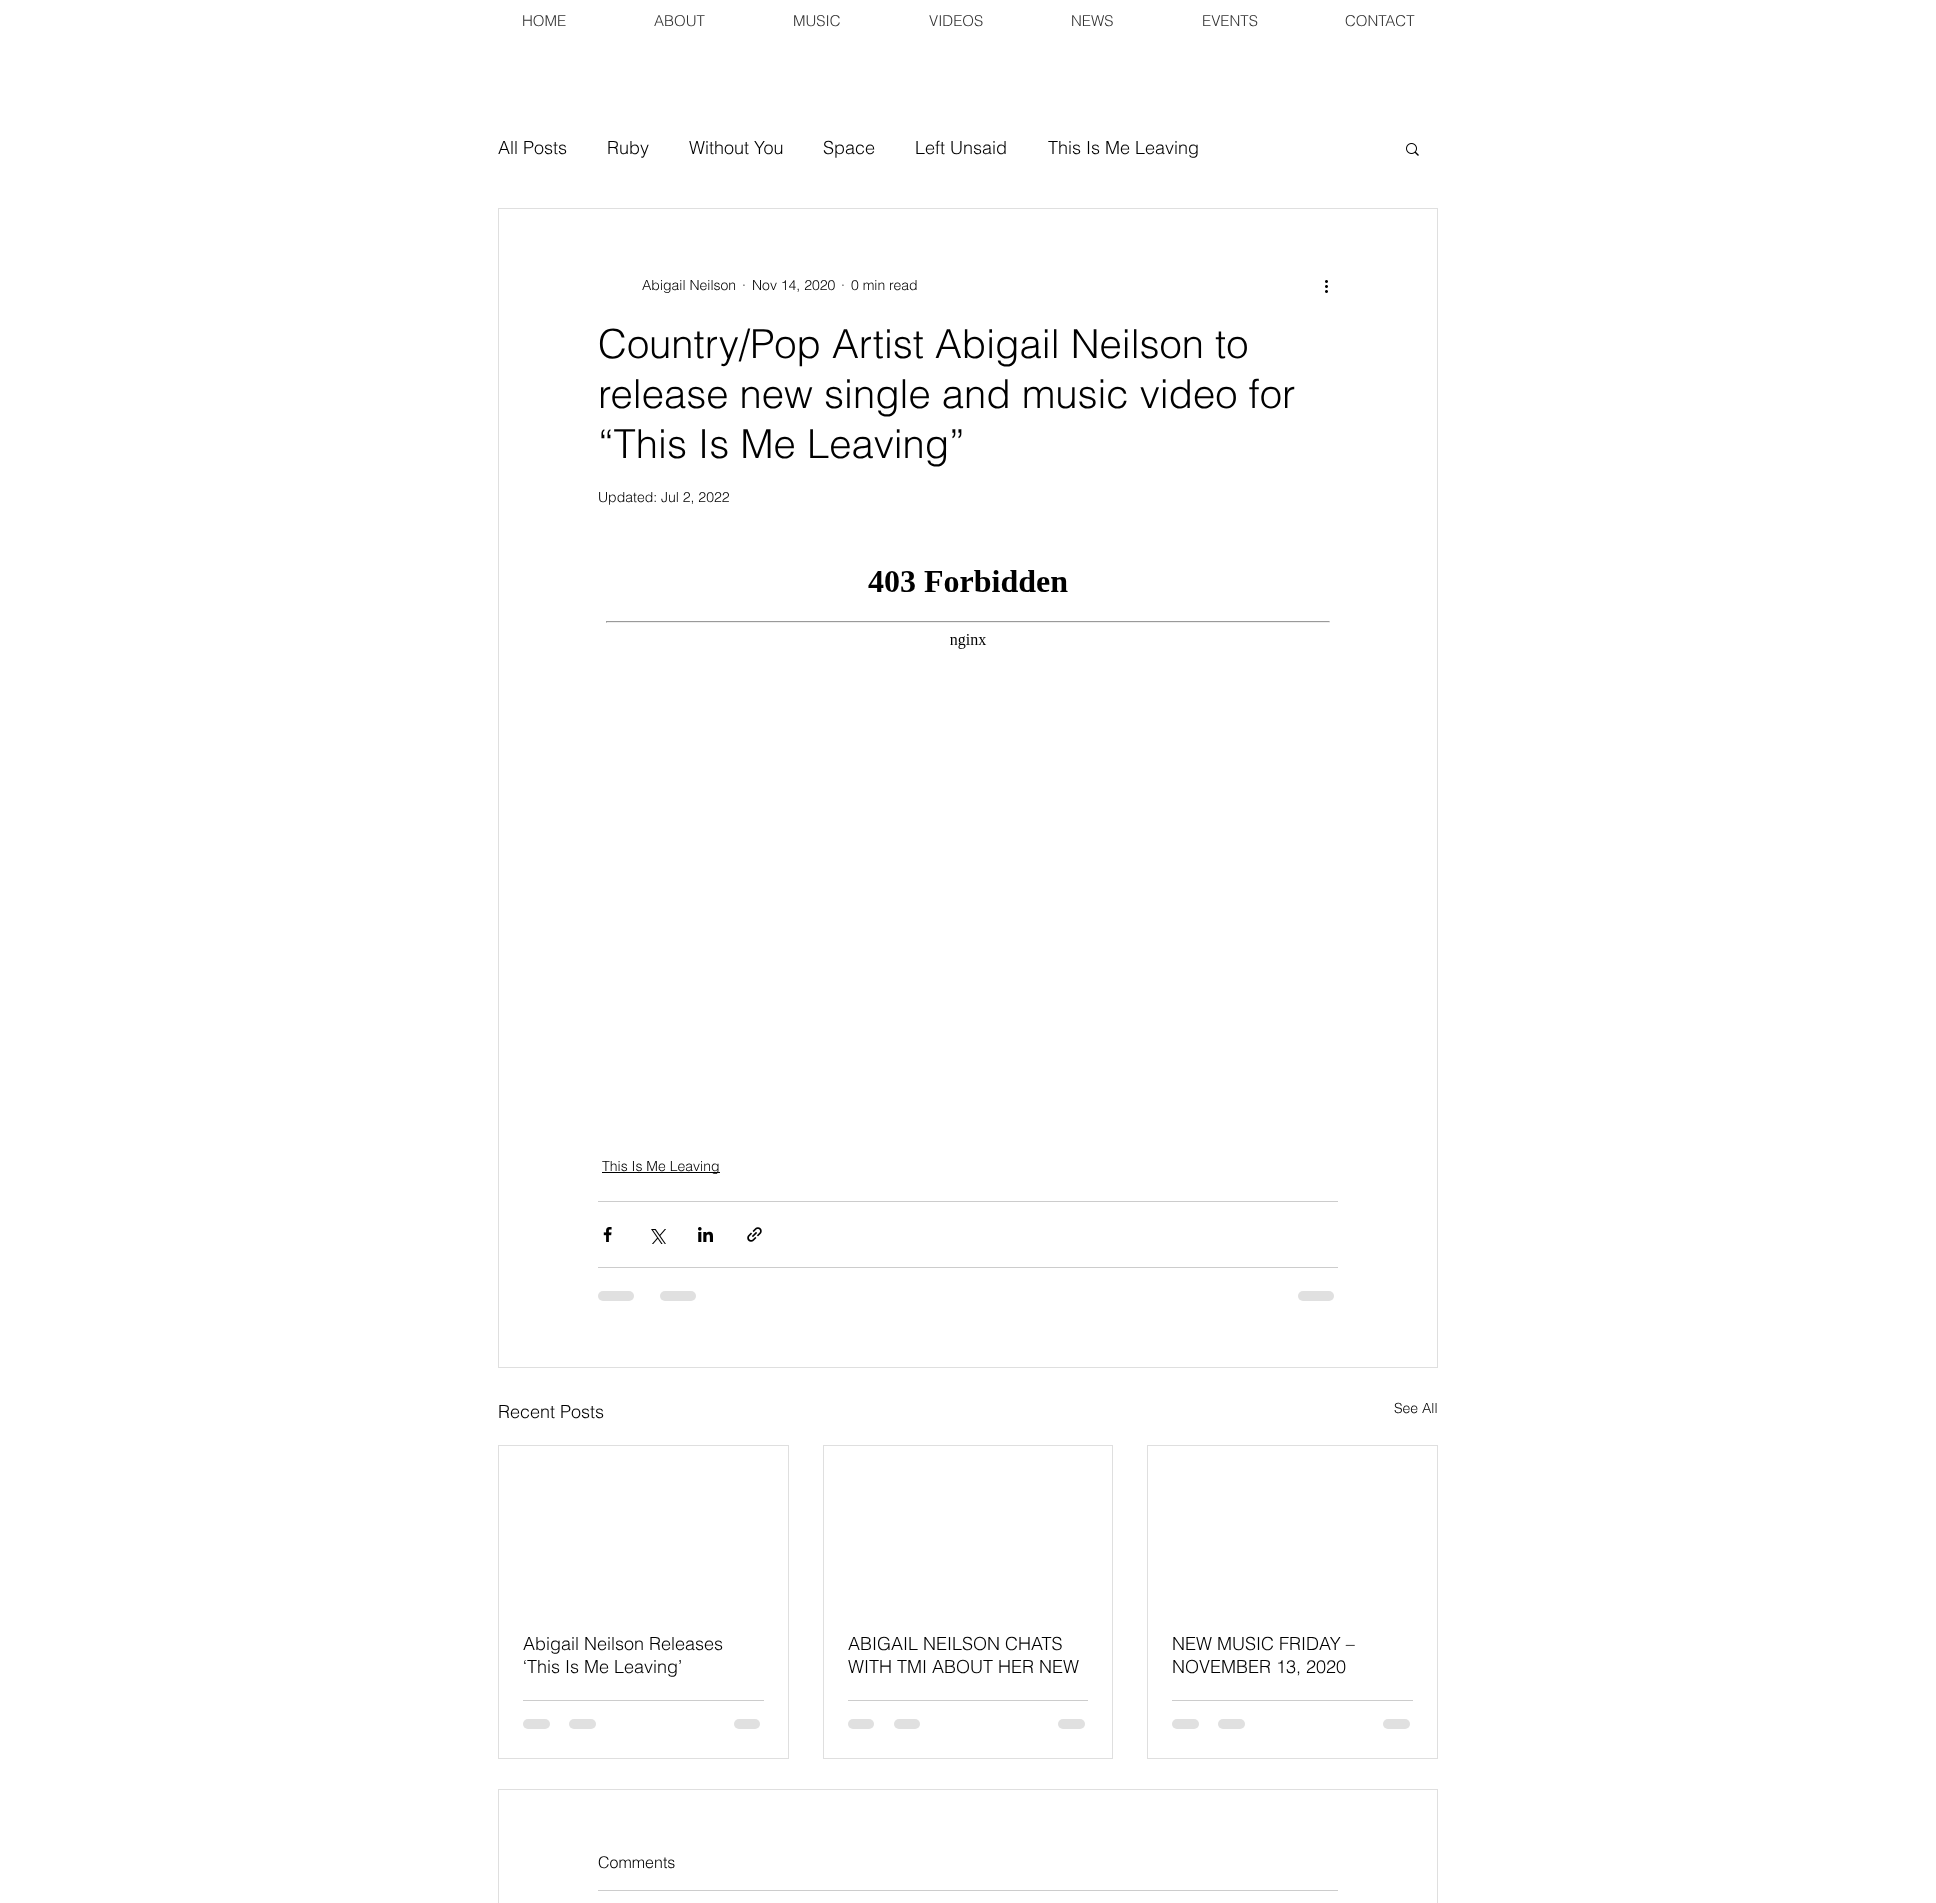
<svg xmlns="http://www.w3.org/2000/svg" xmlns:xlink="http://www.w3.org/1999/xlink" width="1936" height="1903" viewBox="0 0 1936 1903">
<style>
.cls-1{font:300 15px helvetica;fill:#323232}
.cls-2{font:300 18px helvetica;fill:#000000}
.cls-3{font:300 14px helvetica;fill:#000000}
.cls-4{font:300 40px helvetica;fill:#000000}
.cls-5{font:300 16px helvetica;fill:#000000}
</style>
<rect width="100%" height="100%" fill="#ffffff"/>
<image xlink:href="image0.png" x="1406" y="143" width="13" height="13"/>
<rect fill="none" stroke="#dfdfdf" x="498.5" y="208.5" width="939" height="1159"/>
<image xlink:href="image1.png" x="1325" y="280" width="3" height="13"/>
<image xlink:href="image2.png" x="606" y="570" width="724" height="79"/>
<rect fill="#000000" x="602" y="1172" width="118" height="1"/>
<rect fill="#cccccc" x="598" y="1201" width="740" height="1"/>
<image xlink:href="image3.png" x="603" y="1227" width="9" height="15"/>
<image xlink:href="image4.png" x="651" y="1229" width="15" height="15"/>
<image xlink:href="image5.png" x="698" y="1227" width="15" height="15"/>
<image xlink:href="image6.png" x="747" y="1227" width="15" height="15"/>
<rect fill="#cccccc" x="598" y="1267" width="740" height="1"/>
<rect fill="#e0e0e0" x="598" y="1291" width="36" height="10" rx="5"/>
<rect fill="#e0e0e0" x="660" y="1291" width="36" height="10" rx="5"/>
<rect fill="#e0e0e0" x="1298" y="1291" width="36" height="10" rx="5"/>
<rect fill="none" stroke="#dfdfdf" x="498.5" y="1445.5" width="290" height="313"/>
<rect fill="#cccccc" x="523" y="1700" width="241" height="1"/>
<rect fill="#e0e0e0" x="523" y="1719" width="27" height="10" rx="5"/>
<rect fill="#e0e0e0" x="569" y="1719" width="27" height="10" rx="5"/>
<rect fill="#e0e0e0" x="734" y="1719" width="26" height="10" rx="5"/>
<rect fill="none" stroke="#dfdfdf" x="823.5" y="1445.5" width="289" height="313"/>
<rect fill="#cccccc" x="848" y="1700" width="240" height="1"/>
<rect fill="#e0e0e0" x="848" y="1719" width="26" height="10" rx="5"/>
<rect fill="#e0e0e0" x="894" y="1719" width="26" height="10" rx="5"/>
<rect fill="#e0e0e0" x="1058" y="1719" width="27" height="10" rx="5"/>
<rect fill="none" stroke="#dfdfdf" x="1147.5" y="1445.5" width="290" height="313"/>
<rect fill="#cccccc" x="1172" y="1700" width="241" height="1"/>
<rect fill="#e0e0e0" x="1172" y="1719" width="27" height="10" rx="5"/>
<rect fill="#e0e0e0" x="1218" y="1719" width="27" height="10" rx="5"/>
<rect fill="#e0e0e0" x="1383" y="1719" width="27" height="10" rx="5"/>
<rect fill="none" stroke="#dfdfdf" x="498.5" y="1789.5" width="939" height="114"/>
<rect fill="#cccccc" x="598" y="1890" width="740" height="1"/>
<text class="cls-1" x="522" y="26">HOME</text>
<text class="cls-1" x="654" y="26">ABOUT</text>
<text class="cls-1" x="793" y="26">MUSIC</text>
<text class="cls-1" x="929" y="26">VIDEOS</text>
<text class="cls-1" x="1071" y="26">NEWS</text>
<text class="cls-1" x="1202" y="26">EVENTS</text>
<text class="cls-1" x="1345" y="26">CONTACT</text>
<text class="cls-2" x="498" y="154">All Posts</text>
<text class="cls-2" x="607" y="154">Ruby</text>
<text class="cls-2" x="689" y="154">Without You</text>
<text class="cls-2" x="823" y="154">Space</text>
<text class="cls-2" x="915" y="154">Left Unsaid</text>
<text class="cls-2" x="1048" y="154">This Is Me Leaving</text>
<text class="cls-3" x="642" y="290">Abigail Neilson</text>
<text class="cls-3" x="742" y="290">·</text>
<text class="cls-3" x="752" y="290">Nov 14, 2020</text>
<text class="cls-3" x="841" y="290">·</text>
<text class="cls-3" x="851" y="290">0 min read</text>
<text class="cls-4"><tspan x="598" y="358">Country/Pop Artist Abigail Neilson to</tspan><tspan x="598" y="408">release new single and music video for</tspan><tspan x="598" y="458">“This Is Me Leaving”</tspan></text>
<text class="cls-3" x="598" y="502">Updated: Jul 2, 2022</text>
<text class="cls-3" x="602" y="1171">This Is Me Leaving</text>
<text class="cls-2" x="498" y="1418">Recent Posts</text>
<text class="cls-3" x="1394" y="1413">See All</text>
<text class="cls-2"><tspan x="523" y="1650">Abigail Neilson Releases</tspan><tspan x="523" y="1673">‘This Is Me Leaving’</tspan></text>
<text class="cls-2"><tspan x="848" y="1650">ABIGAIL NEILSON CHATS</tspan><tspan x="848" y="1673">WITH TMI ABOUT HER NEW</tspan></text>
<text class="cls-2"><tspan x="1172" y="1650">NEW MUSIC FRIDAY –</tspan><tspan x="1172" y="1673">NOVEMBER 13, 2020</tspan></text>
<text class="cls-5" x="598" y="1868">Comments</text>
</svg>
